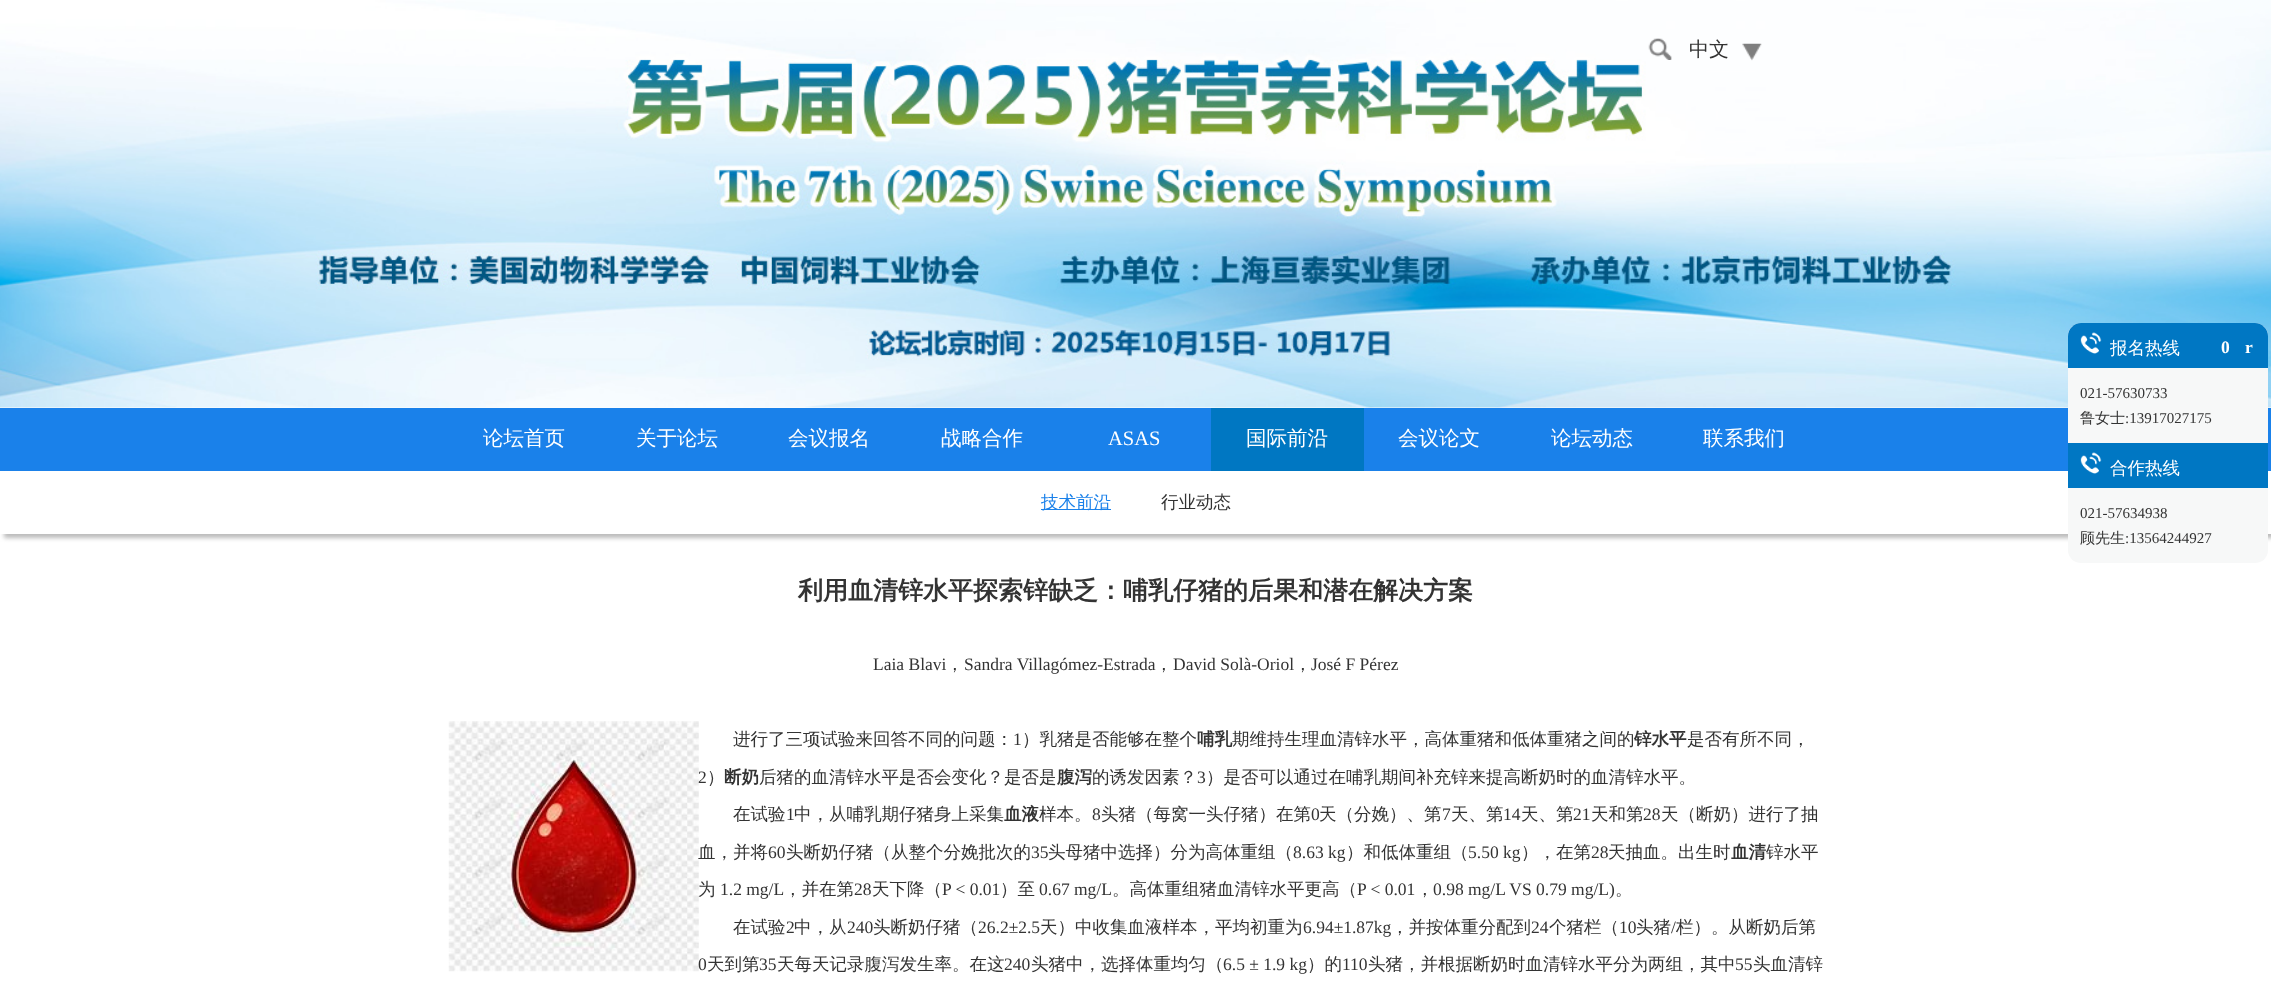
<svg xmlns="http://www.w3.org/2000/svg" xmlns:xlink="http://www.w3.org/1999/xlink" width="2271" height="999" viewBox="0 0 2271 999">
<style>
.cls-1{font:500 20px WenQuanYi Zen Hei;fill:#333333}
.cls-2{font:500 20.5px WenQuanYi Zen Hei;fill:#ffffff}
.cls-3{font:20.5px Liberation Serif;fill:#ffffff}
.cls-4{font:500 17.5px WenQuanYi Zen Hei;fill:#ffffff}
.cls-5{font:bold 17.5px Liberation Serif;fill:#ffffff}
.cls-6{font:15px Liberation Serif;fill:#333333}
.cls-7{font:500 15px WenQuanYi Zen Hei;fill:#333333}
.cls-8{font:500 17.5px WenQuanYi Zen Hei;fill:#1a81ea}
.cls-9{font:500 17.5px WenQuanYi Zen Hei;fill:#333333}
.cls-10{font:bold 25px WenQuanYi Zen Hei;fill:#333333}
.cls-11{font:17.5px Liberation Serif;fill:#333333}
.cls-12{font:bold 17.5px WenQuanYi Zen Hei;fill:#333333}
</style>
<defs>
<clipPath id="clip1"><path d="M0 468H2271V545H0ZM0 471H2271V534H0Z" clip-rule="evenodd"/></clipPath>
</defs>
<rect width="100%" height="100%" fill="#ffffff"/>
<image xlink:href="image0.png" x="0" y="0" width="2271" height="408"/>
<image xlink:href="image1.png" x="1648" y="38" width="24" height="22"/>
<image xlink:href="image2.png" x="1742" y="43" width="20" height="18"/>
<rect fill="#1a81ea" x="0" y="408" width="2271" height="63"/>
<g clip-path="url(#clip1)">
<rect fill="#bbbbbb" filter="blur(2px)" x="4" y="475" width="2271" height="63"/>
</g>
<rect fill="#0077c2" x="1211" y="408" width="153" height="63"/>
<rect fill="#f7f8f8" x="2068" y="323" width="200" height="240" rx="13"/>
<path fill="#0077c3" d="M2081 323H2255C2262 323 2268 329 2268 336V368H2068V336C2068 329 2074 323 2081 323Z"/>
<image xlink:href="image3.png" x="2080" y="332" width="22" height="22"/>
<rect fill="#0077c3" x="2068" y="443" width="200" height="45"/>
<image xlink:href="image3.png" x="2080" y="452" width="22" height="22"/>
<rect fill="#1a81ea" x="1041" y="509" width="70" height="1"/>
<image xlink:href="image4.png" x="448" y="721" width="251" height="251"/>
<text class="cls-1" x="1689" y="56">中文</text>
<text class="cls-2" x="483" y="445">论坛首页</text>
<text class="cls-2" x="636" y="445">关于论坛</text>
<text class="cls-2" x="788" y="445">会议报名</text>
<text class="cls-2" x="941" y="445">战略合作</text>
<text class="cls-3" x="1108" y="445">ASAS</text>
<text class="cls-2" x="1246" y="445">国际前沿</text>
<text class="cls-2" x="1398" y="445">会议论文</text>
<text class="cls-2" x="1551" y="445">论坛动态</text>
<text class="cls-2" x="1703" y="445">联系我们</text>
<text class="cls-4" x="2110" y="354">报名热线</text>
<text class="cls-5" x="2221" y="353">0</text>
<text class="cls-5" x="2245" y="353">r</text>
<text class="cls-6" x="2080" y="398">021-57630733</text>
<text class="cls-7" x="2080" y="423">鲁女士</text>
<text class="cls-6" x="2125" y="423">:13917027175</text>
<text class="cls-4" x="2110" y="474">合作热线</text>
<text class="cls-6" x="2080" y="518">021-57634938</text>
<text class="cls-7" x="2080" y="543">顾先生</text>
<text class="cls-6" x="2125" y="543">:13564244927</text>
<text class="cls-8" x="1041" y="508">技术前沿</text>
<text class="cls-9" x="1161" y="508">行业动态</text>
<text class="cls-10" x="798" y="599">利用血清锌水平探索锌缺乏：哺乳仔猪的后果和潜在解决方案</text>
<text class="cls-11" x="873" y="670">Laia Blavi</text>
<text class="cls-9" x="946" y="670">，</text>
<text class="cls-11" x="964" y="670">Sandra Villagómez-Estrada</text>
<text class="cls-9" x="1155" y="670">，</text>
<text class="cls-11" x="1173" y="670">David Solà-Oriol</text>
<text class="cls-9" x="1294" y="670">，</text>
<text class="cls-11" x="1311" y="670">José F Pérez</text>
<text class="cls-9" x="733" y="745">进行了三项试验来回答不同的问题：</text>
<text class="cls-11" x="1013" y="745">1</text>
<text class="cls-9" x="1022" y="745">）乳猪是否能够在整个</text>
<text class="cls-12" x="1197" y="745">哺乳</text>
<text class="cls-9" x="1232" y="745">期维持生理血清锌水平，高体重猪和低体重猪之间的</text>
<text class="cls-12" x="1634" y="745">锌水平</text>
<text class="cls-9" x="1687" y="745">是否有所不同，</text>
<text class="cls-11" x="698" y="783">2</text>
<text class="cls-9" x="707" y="783">）</text>
<text class="cls-12" x="724" y="783">断奶</text>
<text class="cls-9" x="759" y="783">后猪的血清锌水平是否会变化？是否是</text>
<text class="cls-12" x="1057" y="783">腹泻</text>
<text class="cls-9" x="1092" y="783">的诱发因素？</text>
<text class="cls-11" x="1197" y="783">3</text>
<text class="cls-9" x="1206" y="783">）是否可以通过在哺乳期间补充锌来提高断奶时的血清锌水平。</text>
<text class="cls-9" x="733" y="820">在试验</text>
<text class="cls-11" x="786" y="820">1</text>
<text class="cls-9" x="794" y="820">中，从哺乳期仔猪身上采集</text>
<text class="cls-12" x="1004" y="820">血液</text>
<text class="cls-9" x="1039" y="820">样本。</text>
<text class="cls-11" x="1092" y="820">8</text>
<text class="cls-9" x="1101" y="820">头猪（每窝一头仔猪）在第</text>
<text class="cls-11" x="1311" y="820">0</text>
<text class="cls-9" x="1319" y="820">天（分娩）、第</text>
<text class="cls-11" x="1442" y="820">7</text>
<text class="cls-9" x="1451" y="820">天、第</text>
<text class="cls-11" x="1503" y="820">14</text>
<text class="cls-9" x="1521" y="820">天、第</text>
<text class="cls-11" x="1573" y="820">21</text>
<text class="cls-9" x="1591" y="820">天和第</text>
<text class="cls-11" x="1643" y="820">28</text>
<text class="cls-9" x="1661" y="820">天（断奶）进行了抽</text>
<text class="cls-9" x="698" y="858">血，并将</text>
<text class="cls-11" x="768" y="858">60</text>
<text class="cls-9" x="786" y="858">头断奶仔猪（从整个分娩批次的</text>
<text class="cls-11" x="1031" y="858">35</text>
<text class="cls-9" x="1048" y="858">头母猪中选择）分为高体重组（</text>
<text class="cls-11" x="1293" y="858">8.63 kg</text>
<text class="cls-9" x="1346" y="858">）和低体重组（</text>
<text class="cls-11" x="1468" y="858">5.50 kg</text>
<text class="cls-9" x="1521" y="858">），在第</text>
<text class="cls-11" x="1591" y="858">28</text>
<text class="cls-9" x="1608" y="858">天抽血。出生时</text>
<text class="cls-12" x="1731" y="858">血清</text>
<text class="cls-9" x="1766" y="858">锌水平</text>
<text class="cls-9" x="698" y="895">为</text>
<text class="cls-11" x="720" y="895">1.2 mg/L</text>
<text class="cls-9" x="784" y="895">，并在第</text>
<text class="cls-11" x="854" y="895">28</text>
<text class="cls-9" x="872" y="895">天下降（</text>
<text class="cls-11" x="942" y="895">P &lt; 0.01</text>
<text class="cls-9" x="1000" y="895">）至</text>
<text class="cls-11" x="1039" y="895">0.67 mg/L</text>
<text class="cls-9" x="1112" y="895">。高体重组猪血清锌水平更高（</text>
<text class="cls-11" x="1357" y="895">P &lt; 0.01</text>
<text class="cls-9" x="1416" y="895">，</text>
<text class="cls-11" x="1433" y="895">0.98 mg/L VS 0.79 mg/L)</text>
<text class="cls-9" x="1615" y="895">。</text>
<text class="cls-9" x="733" y="933">在试验</text>
<text class="cls-11" x="786" y="933">2</text>
<text class="cls-9" x="794" y="933">中，从</text>
<text class="cls-11" x="847" y="933">240</text>
<text class="cls-9" x="873" y="933">头断奶仔猪（</text>
<text class="cls-11" x="978" y="933">26.2±2.5</text>
<text class="cls-9" x="1040" y="933">天）中收集血液样本，平均初重为</text>
<text class="cls-11" x="1303" y="933">6.94±1.87kg</text>
<text class="cls-9" x="1391" y="933">，并按体重分配到</text>
<text class="cls-11" x="1531" y="933">24</text>
<text class="cls-9" x="1549" y="933">个猪栏（</text>
<text class="cls-11" x="1619" y="933">10</text>
<text class="cls-9" x="1636" y="933">头猪</text>
<text class="cls-11" x="1671" y="933">/</text>
<text class="cls-9" x="1676" y="933">栏）。从断奶后第</text>
<text class="cls-11" x="698" y="970">0</text>
<text class="cls-9" x="707" y="970">天到第</text>
<text class="cls-11" x="759" y="970">35</text>
<text class="cls-9" x="777" y="970">天每天记录腹泻发生率。在这</text>
<text class="cls-11" x="1004" y="970">240</text>
<text class="cls-9" x="1031" y="970">头猪中，选择体重均匀（</text>
<text class="cls-11" x="1223" y="970">6.5 ± 1.9 kg</text>
<text class="cls-9" x="1307" y="970">）的</text>
<text class="cls-11" x="1342" y="970">110</text>
<text class="cls-9" x="1368" y="970">头猪，并根据断奶时血清锌水平分为两组，其中</text>
<text class="cls-11" x="1735" y="970">55</text>
<text class="cls-9" x="1753" y="970">头血清锌</text>
</svg>
